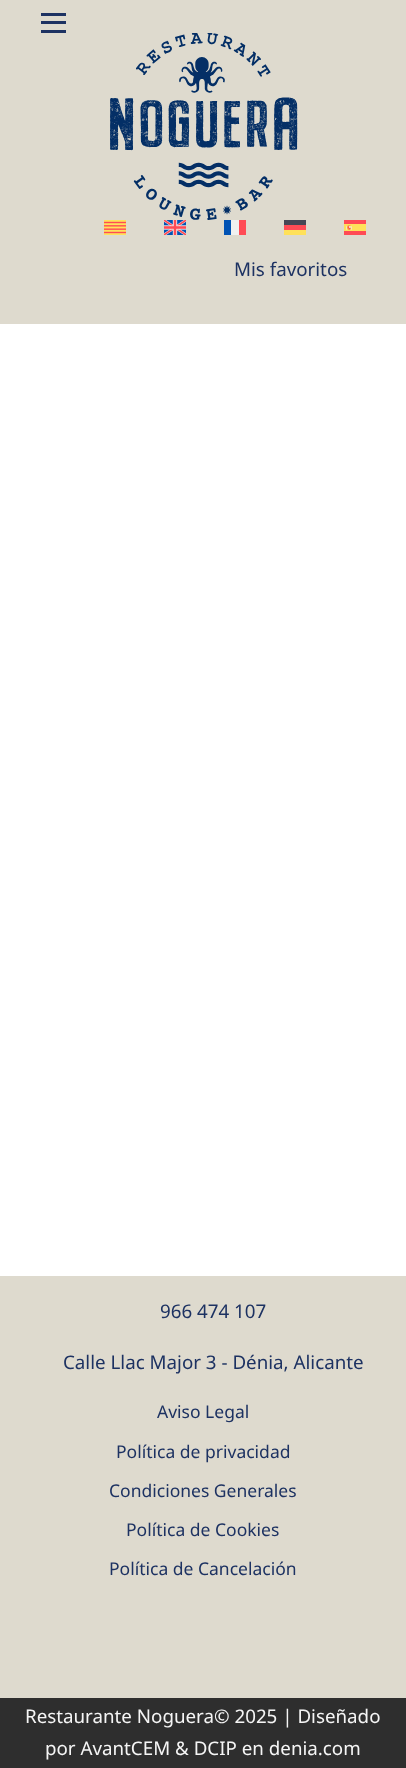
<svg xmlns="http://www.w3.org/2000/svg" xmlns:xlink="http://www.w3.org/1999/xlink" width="406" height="1768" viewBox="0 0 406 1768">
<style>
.cls-1{font:18.75px Noto Sans;fill:#1d3262}
.cls-2{font:17.5px Noto Sans;fill:#1d3262}
.cls-3{font:18.75px Noto Sans;fill:#f5f5f5}
</style>
<rect width="100%" height="100%" fill="#ffffff"/>
<rect fill="#dedace" x="0" y="0" width="406" height="324"/>
<rect fill="#1d3262" x="41" y="13" width="25" height="3"/>
<rect fill="#1d3262" x="41" y="21" width="25" height="3"/>
<rect fill="#1d3262" x="41" y="30" width="25" height="3"/>
<image xlink:href="image0.png" x="110" y="33" width="188" height="187"/>
<image xlink:href="image1.png" x="104" y="220" width="22" height="15"/>
<image xlink:href="image2.png" x="164" y="220" width="22" height="15"/>
<rect fill="#f0f0f0" x="231" y="220" width="8" height="15"/>
<rect fill="#ff4b55" x="239" y="220" width="7" height="15"/>
<rect fill="#0052b4" x="224" y="220" width="7" height="15"/>
<rect fill="#ff4b55" x="284" y="225" width="22" height="5"/>
<rect fill="#ffe15a" x="284" y="230" width="22" height="5"/>
<rect fill="#464655" x="284" y="220" width="22" height="5"/>
<image xlink:href="image3.png" x="344" y="220" width="22" height="15"/>
<rect fill="#dedace" x="0" y="1276" width="406" height="422"/>
<rect fill="#2e2e2e" x="0" y="1698" width="406" height="70"/>
<text class="cls-1" x="234" y="276">Mis favoritos</text>
<text class="cls-1" x="160" y="1318">966 474 107</text>
<text class="cls-1" x="63" y="1369">Calle Llac Major 3 - Dénia, Alicante</text>
<text class="cls-2" x="157" y="1418">Aviso Legal</text>
<text class="cls-2" x="116" y="1458">Política de privacidad</text>
<text class="cls-2" x="109" y="1497">Condiciones Generales</text>
<text class="cls-2" x="126" y="1536">Política de Cookies</text>
<text class="cls-2" x="109" y="1575">Política de Cancelación</text>
<text class="cls-3" x="25" y="1723">Restaurante Noguera© 2025 | Diseñado</text>
<text class="cls-3" x="45" y="1755">por AvantCEM &amp; DCIP en denia.com</text>
</svg>
